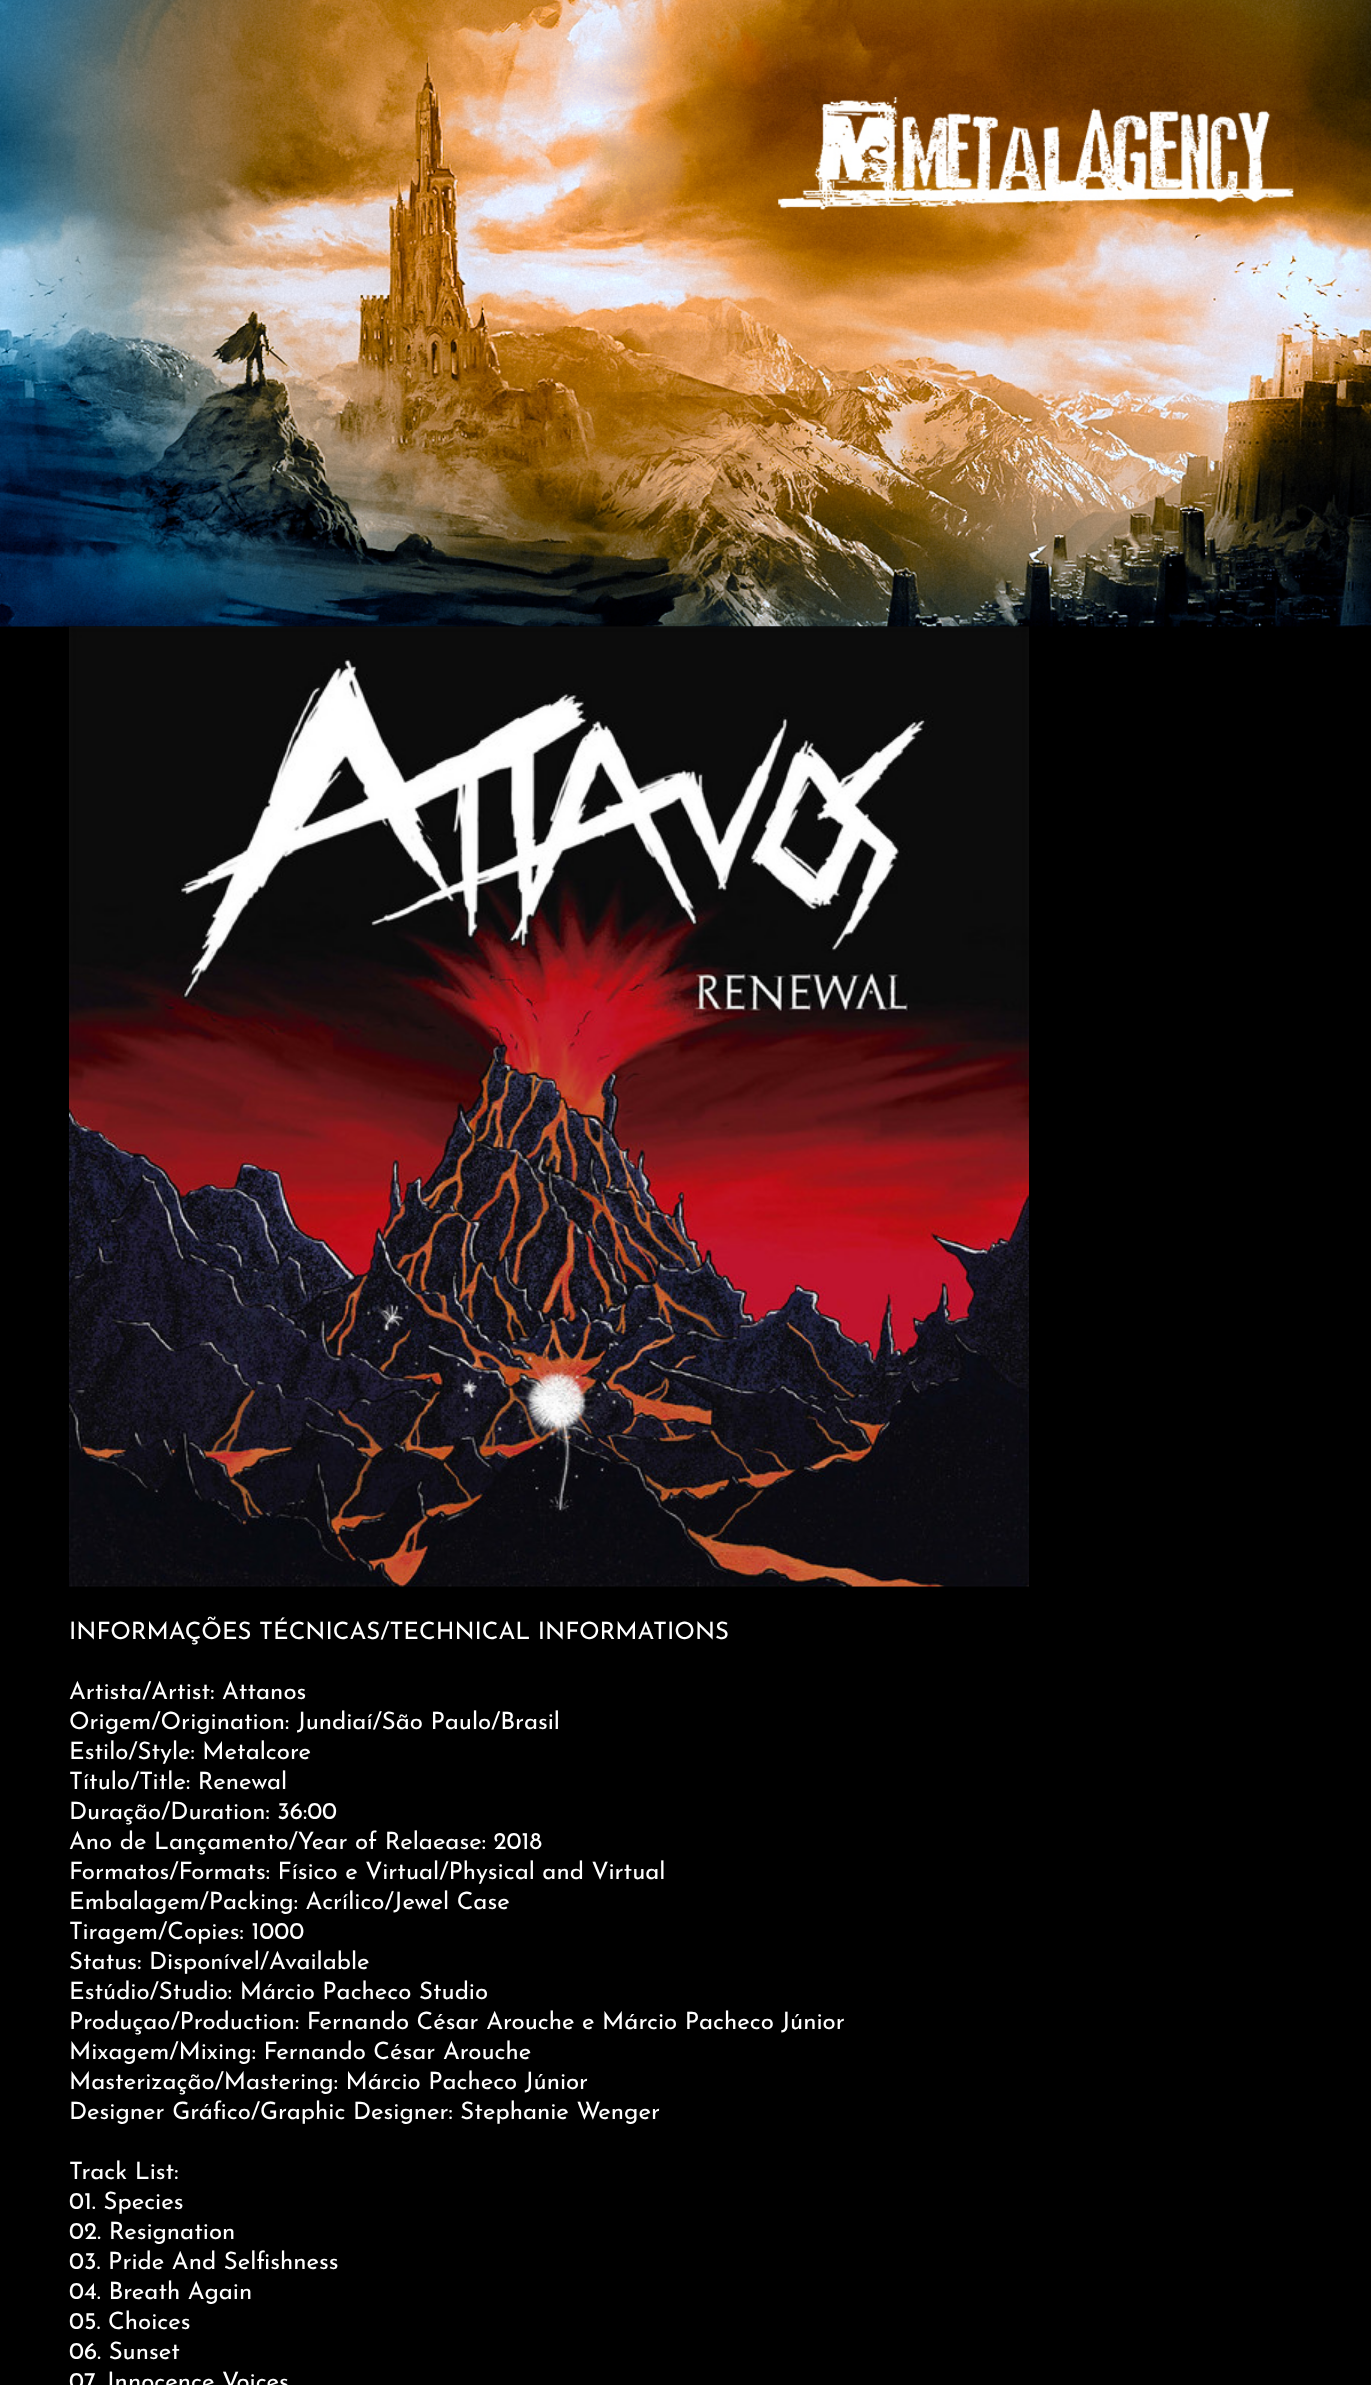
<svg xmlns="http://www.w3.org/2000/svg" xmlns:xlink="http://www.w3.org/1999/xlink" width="1371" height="2385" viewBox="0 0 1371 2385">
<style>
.cls-1{font:24px Josefin Sans;fill:#ffffff}
</style>
<rect width="100%" height="100%" fill="#000000"/>
<image xlink:href="image0.png" x="0" y="0" width="1371" height="627"/>
<image xlink:href="image1.png" x="69" y="626" width="960" height="961"/>
<text class="cls-1" x="69" y="1639">INFORMAÇÕES TÉCNICAS/TECHNICAL INFORMATIONS</text>
<text class="cls-1"><tspan x="69" y="1699">Artista/Artist: Attanos</tspan><tspan x="69" y="1729">Origem/Origination: Jundiaí/São Paulo/Brasil</tspan><tspan x="69" y="1759">Estilo/Style: Metalcore</tspan><tspan x="69" y="1789">Título/Title: Renewal</tspan><tspan x="69" y="1819">Duração/Duration: 36:00</tspan><tspan x="69" y="1849">Ano de Lançamento/Year of Relaease: 2018</tspan><tspan x="69" y="1879">Formatos/Formats: Físico e Virtual/Physical and Virtual</tspan><tspan x="69" y="1909">Embalagem/Packing: Acrílico/Jewel Case</tspan><tspan x="69" y="1939">Tiragem/Copies: 1000</tspan><tspan x="69" y="1969">Status: Disponível/Available</tspan><tspan x="69" y="1999">Estúdio/Studio: Márcio Pacheco Studio</tspan><tspan x="69" y="2029">Produçao/Production: Fernando César Arouche e Márcio Pacheco Júnior</tspan><tspan x="69" y="2059">Mixagem/Mixing: Fernando César Arouche</tspan><tspan x="69" y="2089">Masterização/Mastering: Márcio Pacheco Júnior</tspan><tspan x="69" y="2119">Designer Gráfico/Graphic Designer: Stephanie Wenger</tspan></text>
<text class="cls-1"><tspan x="69" y="2179">Track List:</tspan><tspan x="69" y="2209">01. Species</tspan><tspan x="69" y="2239">02. Resignation</tspan><tspan x="69" y="2269">03. Pride And Selfishness</tspan><tspan x="69" y="2299">04. Breath Again</tspan><tspan x="69" y="2329">05. Choices</tspan><tspan x="69" y="2359">06. Sunset</tspan><tspan x="69" y="2389">07. Innocence Voices</tspan></text>
</svg>
